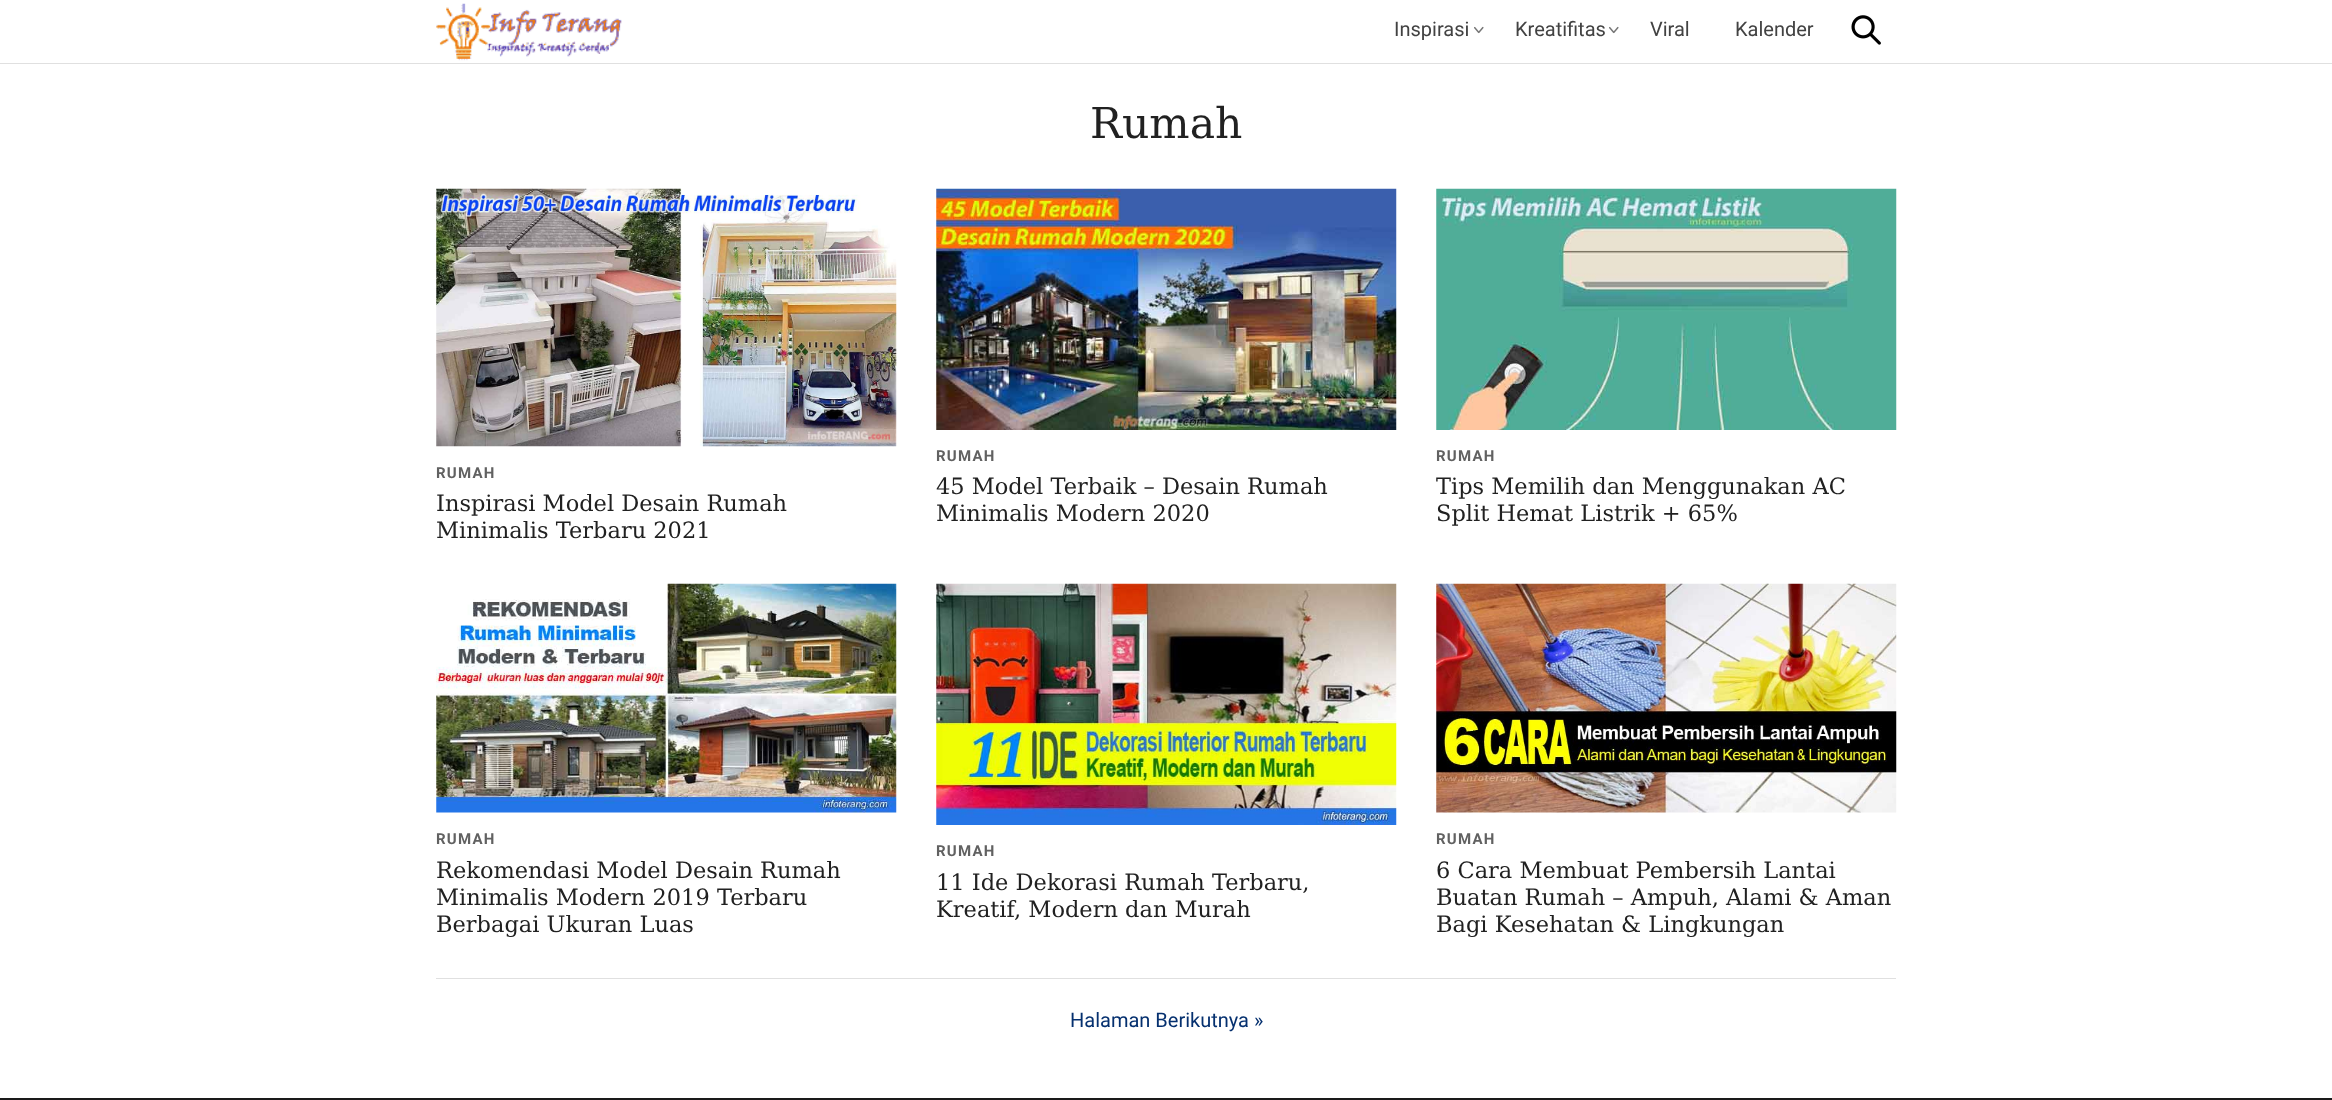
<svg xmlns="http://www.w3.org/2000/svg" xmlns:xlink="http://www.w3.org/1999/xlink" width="2332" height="1100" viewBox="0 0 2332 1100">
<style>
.cls-1{font:20px Roboto;fill:#424242}
.cls-2{font:42.5px DejaVu Serif;fill:#212121}
.cls-3{font:bold 15px Roboto;letter-spacing:1.25px;fill:#616161}
.cls-4{font:22.5px DejaVu Serif;fill:#212121}
.cls-5{font:20px Roboto;fill:#05306f}
</style>
<rect width="100%" height="100%" fill="#ffffff"/>
<rect fill="#e0e0e0" x="0" y="63" width="2332" height="1"/>
<image xlink:href="image0.png" x="436" y="3" width="186" height="58"/>
<image xlink:href="image1.png" x="1474" y="26" width="10" height="8"/>
<image xlink:href="image1.png" x="1609" y="26" width="10" height="8"/>
<image xlink:href="image2.png" x="1851" y="15" width="30" height="30"/>
<image xlink:href="image3.png" x="436" y="188" width="461" height="259"/>
<image xlink:href="image4.png" x="936" y="188" width="461" height="242"/>
<image xlink:href="image5.png" x="1436" y="188" width="461" height="242"/>
<image xlink:href="image6.png" x="436" y="583" width="461" height="230"/>
<image xlink:href="image7.png" x="936" y="583" width="461" height="242"/>
<image xlink:href="image8.png" x="1436" y="583" width="461" height="230"/>
<rect fill="#e0e0e0" x="436" y="978" width="1460" height="1"/>
<rect fill="#1a1a1a" x="0" y="1098" width="2332" height="2"/>
<text class="cls-1" x="1394" y="36">Inspirasi</text>
<text class="cls-1" x="1515" y="36">Kreatifitas</text>
<text class="cls-1" x="1650" y="36">Viral</text>
<text class="cls-1" x="1735" y="36">Kalender</text>
<text class="cls-2" x="1090" y="138">Rumah</text>
<text class="cls-3" x="436" y="478">RUMAH</text>
<text class="cls-4"><tspan x="436" y="511">Inspirasi Model Desain Rumah</tspan><tspan x="436" y="538">Minimalis Terbaru 2021</tspan></text>
<text class="cls-3" x="936" y="461">RUMAH</text>
<text class="cls-4"><tspan x="936" y="494">45 Model Terbaik – Desain Rumah</tspan><tspan x="936" y="521">Minimalis Modern 2020</tspan></text>
<text class="cls-3" x="1436" y="461">RUMAH</text>
<text class="cls-4"><tspan x="1436" y="494">Tips Memilih dan Menggunakan AC</tspan><tspan x="1436" y="521">Split Hemat Listrik + 65%</tspan></text>
<text class="cls-3" x="436" y="844">RUMAH</text>
<text class="cls-4"><tspan x="436" y="878">Rekomendasi Model Desain Rumah</tspan><tspan x="436" y="905">Minimalis Modern 2019 Terbaru</tspan><tspan x="436" y="932">Berbagai Ukuran Luas</tspan></text>
<text class="cls-3" x="936" y="856">RUMAH</text>
<text class="cls-4"><tspan x="936" y="890">11 Ide Dekorasi Rumah Terbaru,</tspan><tspan x="936" y="917">Kreatif, Modern dan Murah</tspan></text>
<text class="cls-3" x="1436" y="844">RUMAH</text>
<text class="cls-4"><tspan x="1436" y="878">6 Cara Membuat Pembersih Lantai</tspan><tspan x="1436" y="905">Buatan Rumah – Ampuh, Alami &amp; Aman</tspan><tspan x="1436" y="932">Bagi Kesehatan &amp; Lingkungan</tspan></text>
<text class="cls-5" x="1070" y="1027">Halaman Berikutnya »</text>
</svg>
